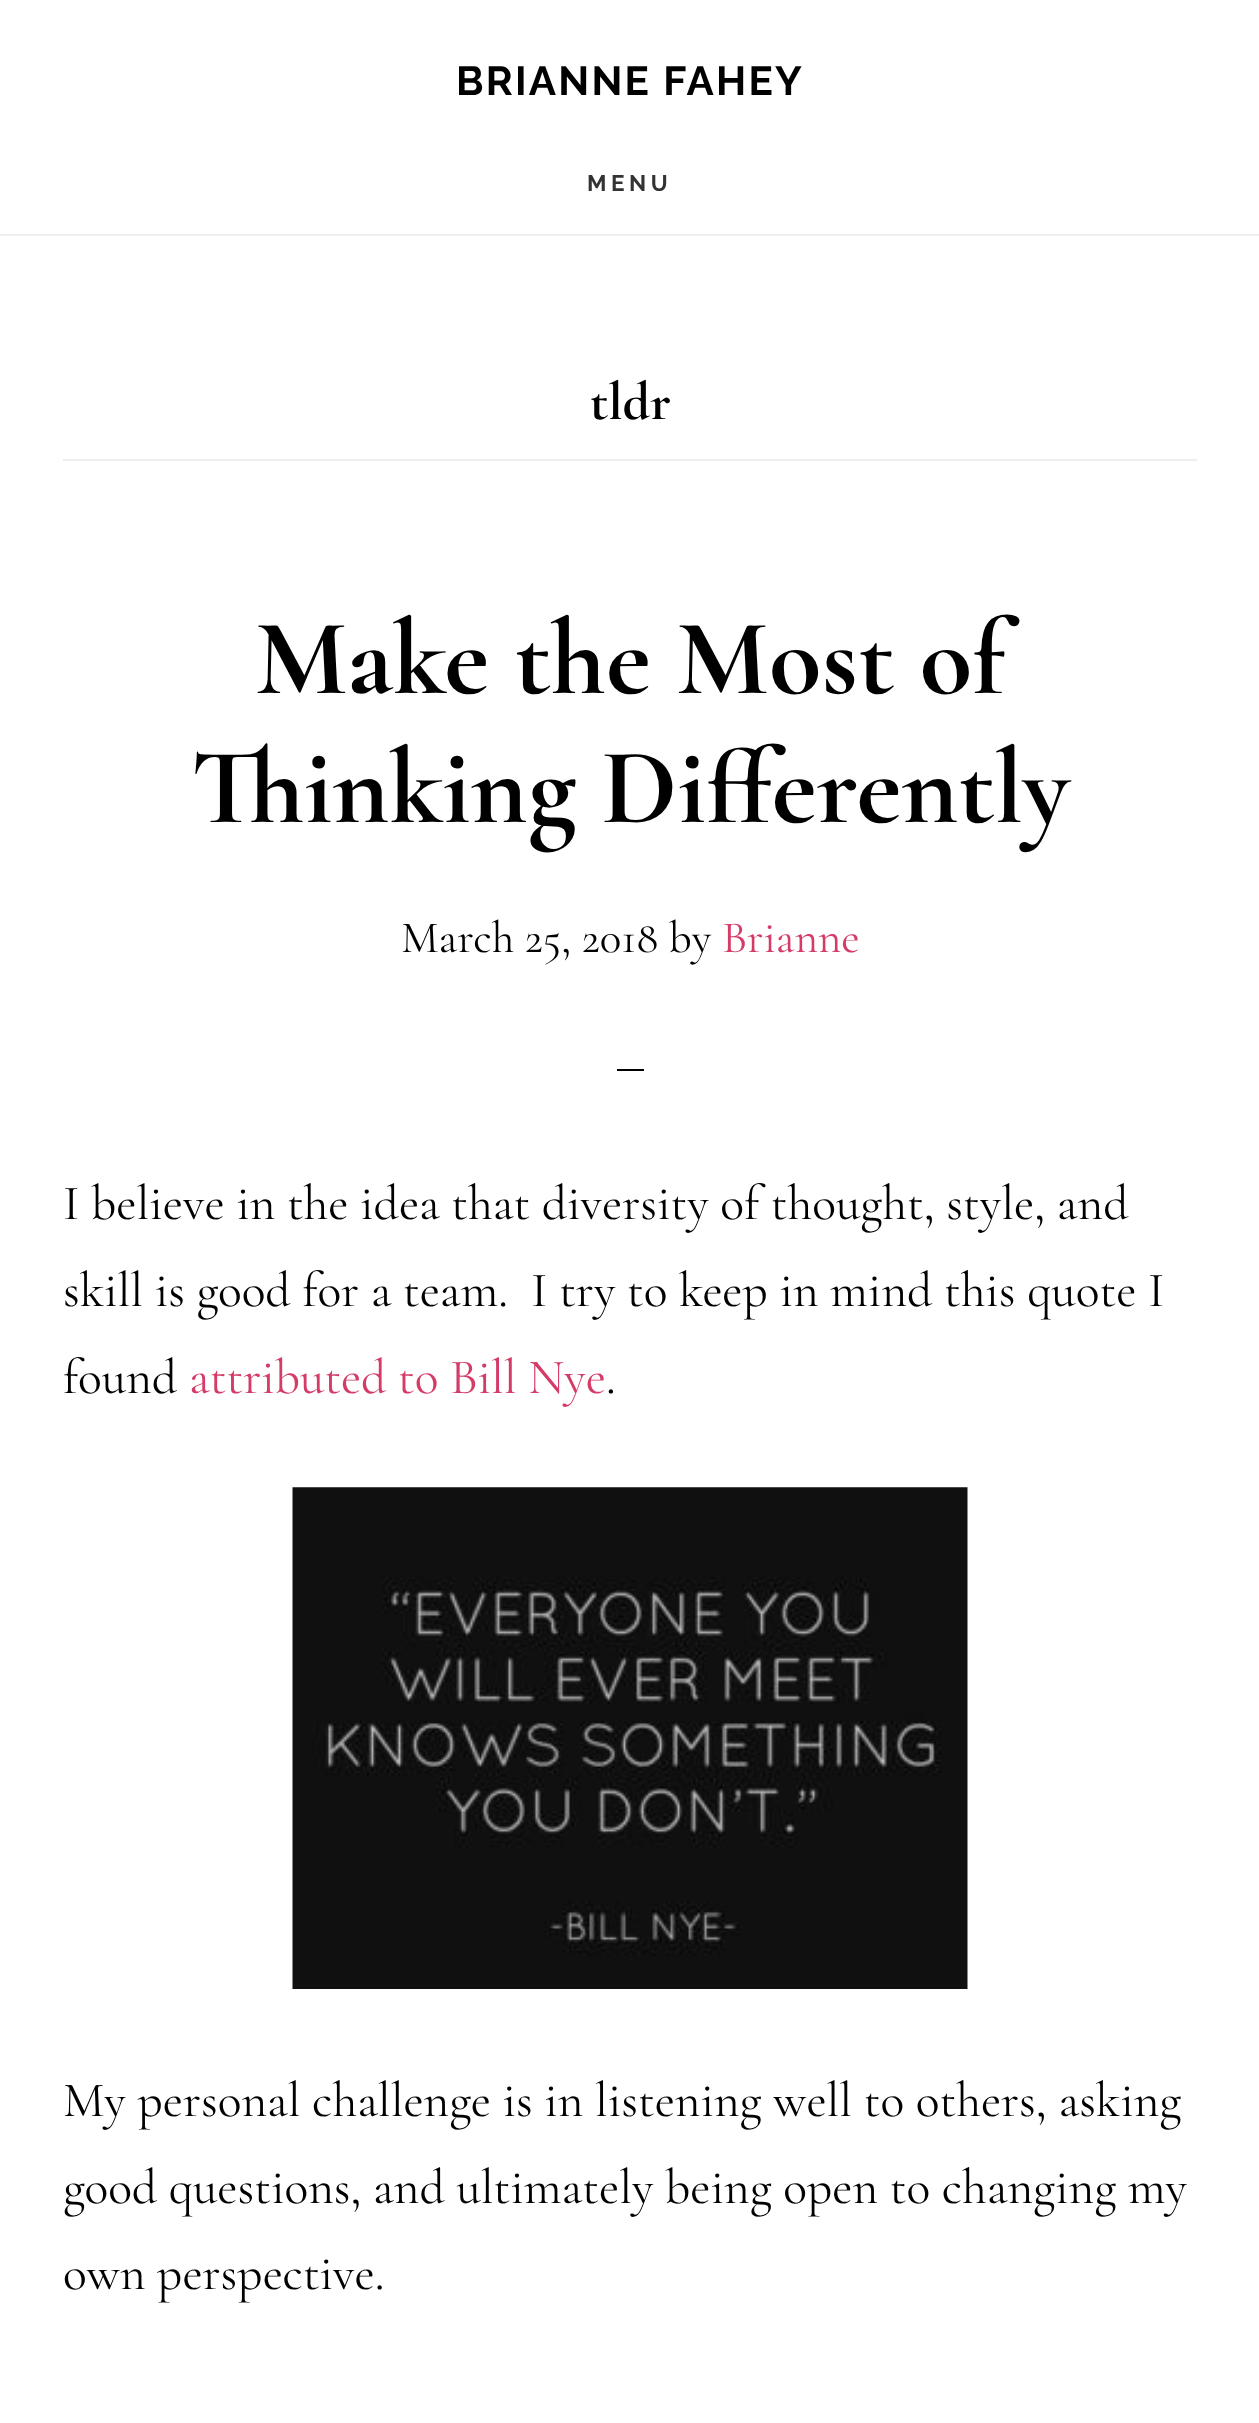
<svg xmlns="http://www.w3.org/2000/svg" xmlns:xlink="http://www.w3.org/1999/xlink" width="1259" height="2423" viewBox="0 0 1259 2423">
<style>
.cls-1{font:100 40.5px Raleway;letter-spacing:2.25px;fill:#000000}
.cls-2{font:100 22.5px Raleway;letter-spacing:4.5px;fill:#333333}
.cls-3{font:bold 54px Cormorant Garamond;fill:#000000}
.cls-4{font:bold 108px Cormorant Garamond;fill:#000000}
.cls-5{font:45px Cormorant Garamond;fill:#000000}
.cls-6{font:45px Cormorant Garamond;fill:#d43c67}
.cls-7{font:49.5px Cormorant Garamond;fill:#000000}
.cls-8{font:49.5px Cormorant Garamond;fill:#d43c67}
</style>
<rect width="100%" height="100%" fill="#ffffff"/>
<rect fill="#eeeeee" x="0" y="234" width="1259" height="2"/>
<rect fill="#eeeeee" x="63" y="459" width="1134" height="2"/>
<rect fill="#000000" x="617" y="1069" width="27" height="2"/>
<image xlink:href="image0.png" x="292" y="1487" width="676" height="502"/>
<text class="cls-1" x="456" y="95">BRIANNE FAHEY</text>
<text class="cls-2" x="587" y="191">MENU</text>
<text class="cls-3" x="590" y="419">tldr</text>
<text class="cls-4" x="255" y="693">Make the Most of</text>
<text class="cls-4" x="191" y="822">Thinking Differently</text>
<text class="cls-5" x="401" y="952">March 25, 2018 by</text>
<text class="cls-6" x="722" y="952">Brianne</text>
<text class="cls-7" xml:space="preserve"><tspan x="63" y="1219">I believe in the idea that diversity of thought, style, and</tspan><tspan x="63" y="1306">skill is good for a team.  I try to keep in mind this quote I</tspan><tspan x="63" y="1393">found</tspan></text>
<text class="cls-8" x="189" y="1393">attributed to Bill Nye</text>
<text class="cls-7" x="606" y="1393">.</text>
<text class="cls-7"><tspan x="63" y="2116">My personal challenge is in listening well to others, asking</tspan><tspan x="63" y="2203">good questions, and ultimately being open to changing my</tspan><tspan x="63" y="2289">own perspective.</tspan></text>
</svg>
